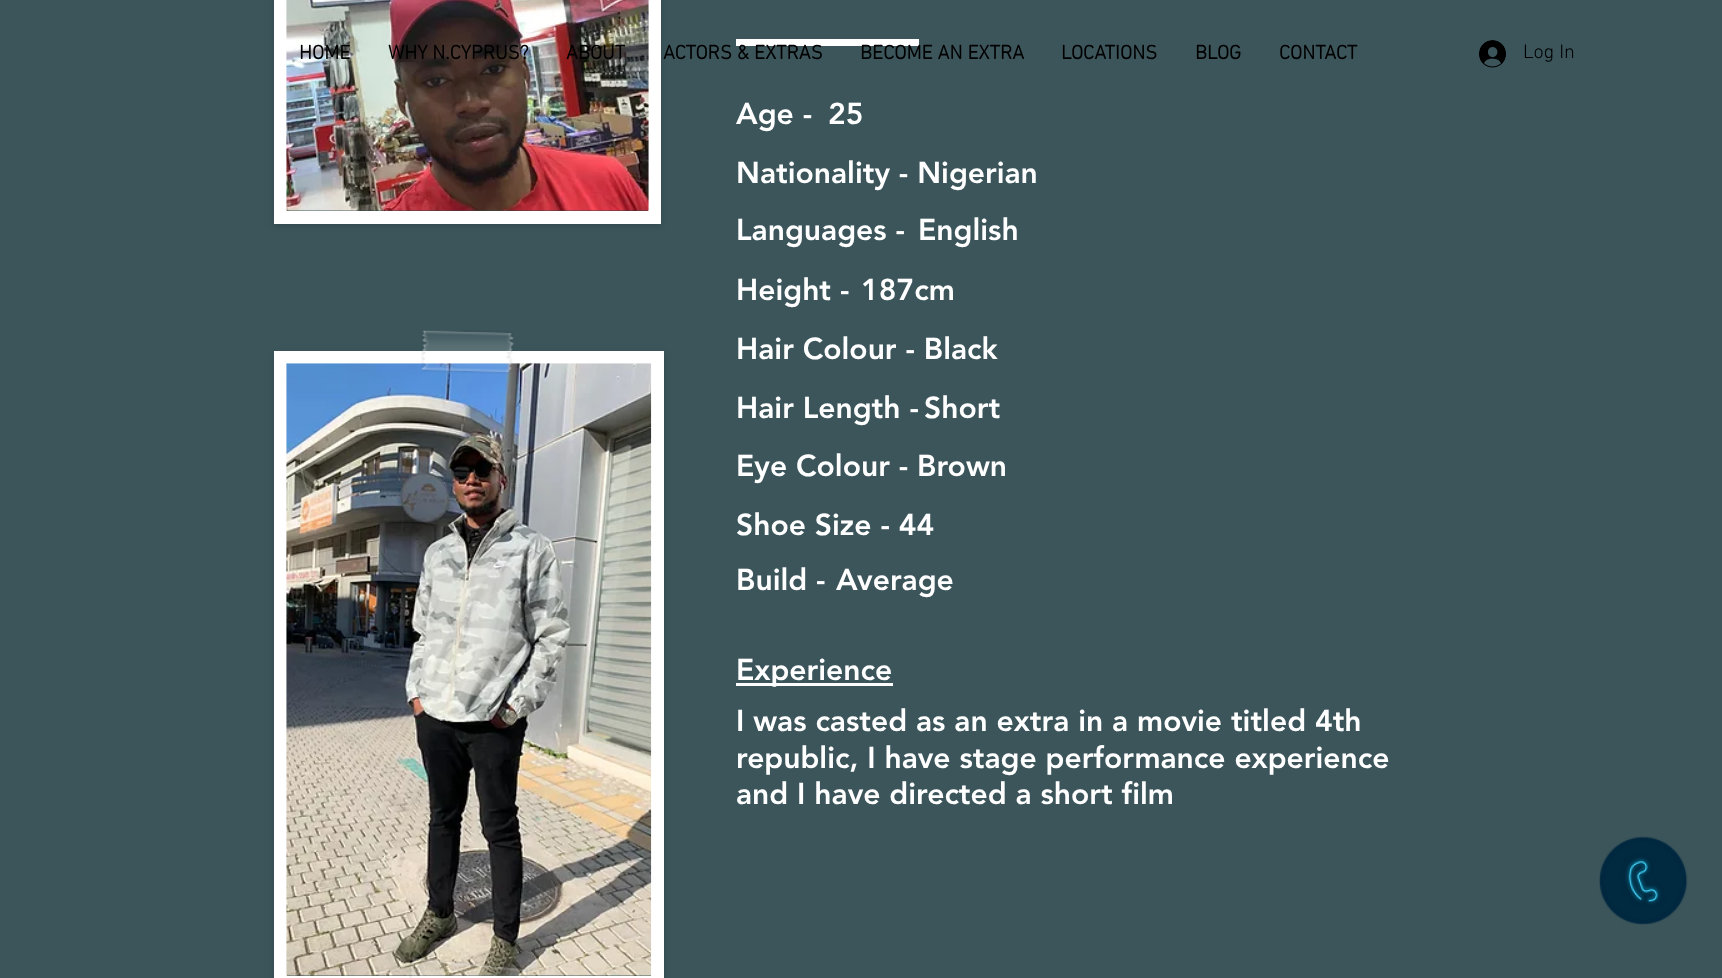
<svg xmlns="http://www.w3.org/2000/svg" xmlns:xlink="http://www.w3.org/1999/xlink" width="1722" height="978" viewBox="0 0 1722 978">
<style>
.cls-1{font:bold 20px 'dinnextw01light';fill:#000000}
.cls-2{font:300 20px 'dinnextw01light';fill:#000000}
.cls-3{font:900 30px 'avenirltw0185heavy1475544';fill:#ffffff}
</style>
<rect width="100%" height="100%" fill="#3b555b"/>
<image xlink:href="image0.png" x="1479" y="40" width="27" height="28"/>
<rect fill="#000000" fill-opacity="0.15" filter="blur(3px)" x="274" y="-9" width="387" height="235"/>
<rect fill="none" stroke="#ffffff" stroke-width="13" x="280.5" y="-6.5" width="374" height="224"/>
<image xlink:href="image1.png" x="286" y="0" width="363" height="211"/>
<rect fill="#ffffff" x="736" y="39" width="183" height="7"/>
<rect fill="#000000" fill-opacity="0.15" filter="blur(3px)" x="274" y="354" width="390" height="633"/>
<rect fill="none" stroke="#ffffff" stroke-width="13" x="280.5" y="357.5" width="377" height="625"/>
<image xlink:href="image3.png" x="286" y="363" width="366" height="613"/>
<image xlink:href="image2.png" x="421" y="330" width="93" height="44"/>
<image xlink:href="image4.png" x="409" y="958" width="119" height="20"/>
<rect fill="#ffffff" x="736" y="683" width="157" height="3"/>
<image xlink:href="image5.png" x="1599" y="836" width="89" height="89"/>
<text class="cls-1" x="299" y="59">HOME</text>
<text class="cls-1" x="388" y="59">WHY N.CYPRUS?</text>
<text class="cls-1" x="566" y="59">ABOUT</text>
<text class="cls-1" x="663" y="59">ACTORS &amp; EXTRAS</text>
<text class="cls-1" x="860" y="59">BECOME AN EXTRA</text>
<text class="cls-1" x="1061" y="59">LOCATIONS</text>
<text class="cls-1" x="1195" y="59">BLOG</text>
<text class="cls-1" x="1279" y="59">CONTACT</text>
<text class="cls-2" x="1523" y="58">Log In</text>
<text class="cls-3" x="736" y="124">Age -</text>
<text class="cls-3" x="828" y="124">25</text>
<text class="cls-3"><tspan x="736" y="183">Nationality - Nigerian</tspan><tspan x="736" y="240">Languages -</tspan></text>
<text class="cls-3" x="918" y="240">English</text>
<text class="cls-3" x="736" y="300">Height -</text>
<text class="cls-3" x="861" y="300">187cm</text>
<text class="cls-3"><tspan x="736" y="359">Hair Colour - Black</tspan><tspan x="736" y="418">Hair Length -</tspan></text>
<text class="cls-3" x="924" y="418">Short</text>
<text class="cls-3"><tspan x="736" y="476">Eye Colour - Brown</tspan><tspan x="736" y="535">Shoe Size - 44</tspan><tspan x="736" y="590">Build -</tspan></text>
<text class="cls-3" x="836" y="590">Average</text>
<text class="cls-3"><tspan x="736" y="680">Experience</tspan><tspan x="736" y="731">I was casted as an extra in a movie titled 4th</tspan><tspan x="736" y="768">republic, I have stage performance experience</tspan><tspan x="736" y="804">and I have directed a short film</tspan></text>
</svg>
